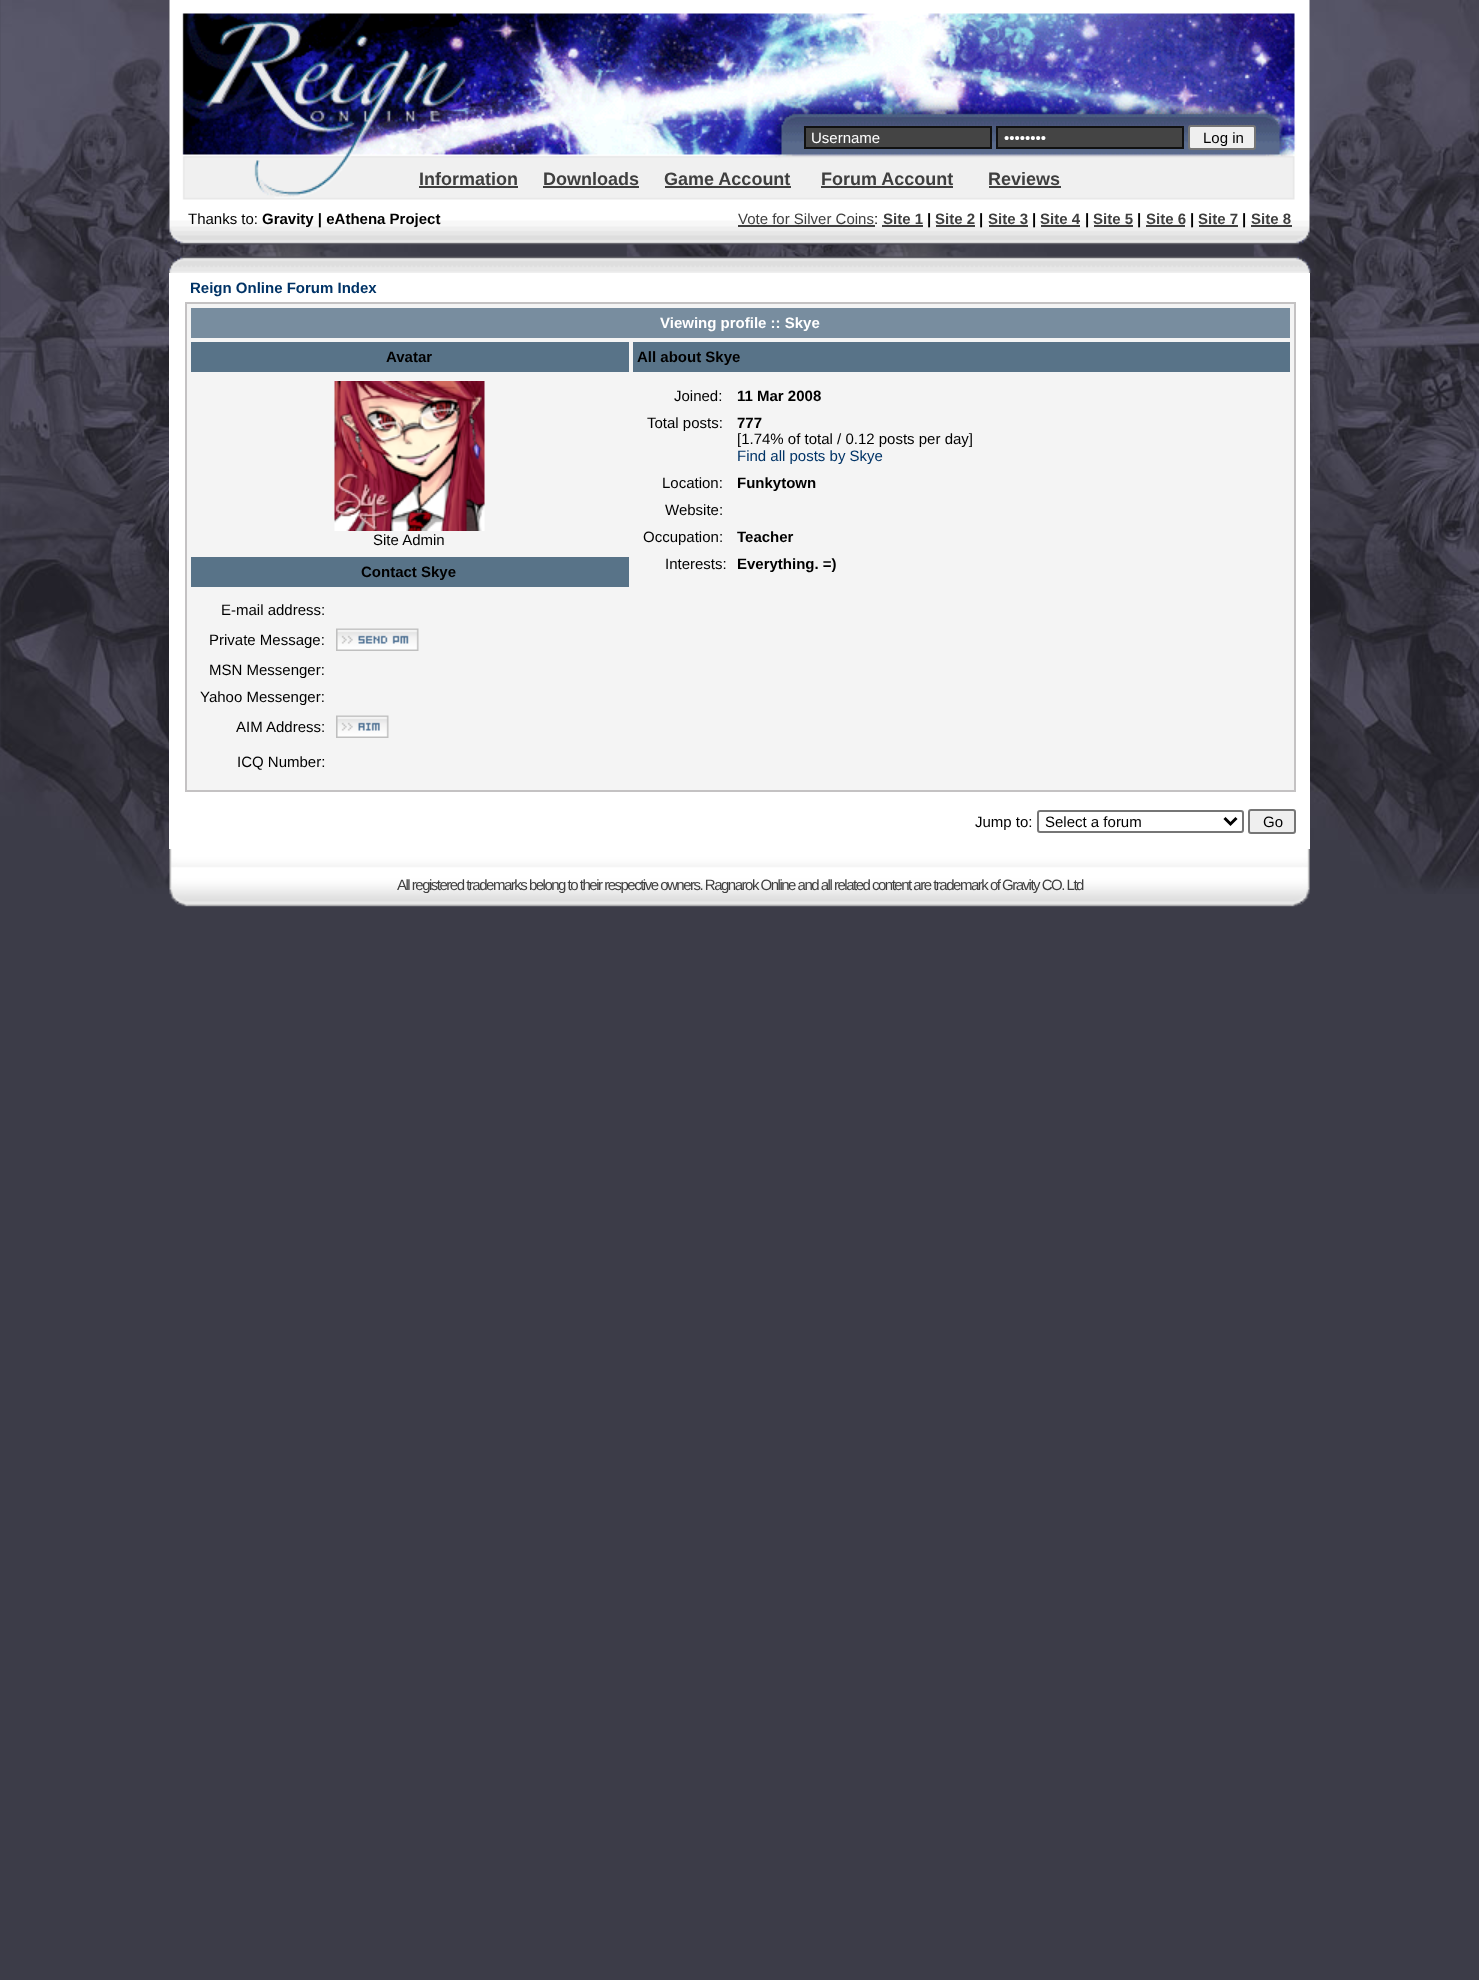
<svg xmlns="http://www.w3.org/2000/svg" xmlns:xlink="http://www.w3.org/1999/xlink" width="1479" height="1980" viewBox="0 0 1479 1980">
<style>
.cls-1{font:15px Liberation Sans;fill:#ffffff}
.cls-2{font:15px Liberation Sans;fill:#000000}
.cls-3{font:bold 18px Liberation Sans;fill:#3f3f3f}
.cls-4{font:bold 15px Liberation Sans;fill:#000000}
.cls-5{font:15px Liberation Sans;fill:#3f3f3f}
.cls-6{font:bold 15px Liberation Sans;fill:#3f3f3f}
.cls-7{font:bold 15px Liberation Sans;fill:#003366}
.cls-8{font:bold 15px Liberation Sans;fill:#ffffff}
.cls-9{font:15px Liberation Sans;fill:#003366}
.cls-10{font:15px Liberation Sans;letter-spacing:-1.5px;fill:#3f3f3f}
</style>
<rect width="100%" height="100%" fill="#3c3c48"/>
<image xlink:href="image0.png" x="0" y="0" width="1479" height="894"/>
<image xlink:href="image1.png" x="168" y="0" width="1144" height="273"/>
<rect fill="#444444" stroke="#111111" stroke-width="2" x="805" y="127" width="186" height="21"/>
<rect fill="#444444" stroke="#111111" stroke-width="2" x="997" y="127" width="186" height="21"/>
<rect fill="#efefef" stroke="#767676" stroke-width="2" x="1189" y="126" width="66" height="23" rx="2"/>
<rect fill="#3f3f3f" x="419" y="186" width="99" height="2"/>
<rect fill="#3f3f3f" x="543" y="186" width="96" height="2"/>
<rect fill="#3f3f3f" x="665" y="186" width="126" height="2"/>
<rect fill="#3f3f3f" x="821" y="186" width="132" height="2"/>
<rect fill="#3f3f3f" x="989" y="186" width="72" height="2"/>
<rect fill="#3f3f3f" x="738" y="225" width="137" height="2"/>
<rect fill="#3f3f3f" x="882" y="225" width="41" height="2"/>
<rect fill="#3f3f3f" x="936" y="225" width="39" height="2"/>
<rect fill="#3f3f3f" x="989" y="225" width="39" height="2"/>
<rect fill="#3f3f3f" x="1041" y="225" width="39" height="2"/>
<rect fill="#3f3f3f" x="1094" y="225" width="39" height="2"/>
<rect fill="#3f3f3f" x="1146" y="225" width="39" height="2"/>
<rect fill="#3f3f3f" x="1199" y="225" width="39" height="2"/>
<rect fill="#3f3f3f" x="1251" y="225" width="41" height="2"/>
<rect fill="#ffffff" x="169" y="273" width="1141" height="576"/>
<rect fill="#f4f4f4" stroke="#c4c2c3" stroke-width="2" x="186" y="303" width="1109" height="488"/>
<rect fill="#788d9f" x="191" y="308" width="1099" height="30"/>
<rect fill="#587388" x="191" y="342" width="438" height="30"/>
<rect fill="#587388" x="633" y="342" width="657" height="30"/>
<image xlink:href="image2.png" x="334" y="381" width="151" height="150"/>
<rect fill="#587388" x="191" y="557" width="438" height="30"/>
<image xlink:href="image3.png" x="336" y="628" width="83" height="23"/>
<image xlink:href="image4.png" x="336" y="715" width="53" height="23"/>
<rect fill="none" stroke="#767676" stroke-width="2" x="1038" y="811" width="205" height="21" rx="2"/>
<path fill="none" stroke="#000000" stroke-width="3" d="M1224.5 818L1230.5 824L1236.5 818"/>
<rect fill="#efefef" stroke="#767676" stroke-width="2" x="1249" y="810" width="46" height="23" rx="2"/>
<image xlink:href="image5.png" x="169" y="849" width="1141" height="58"/>
<text class="cls-1" x="811" y="143">Username</text>
<text class="cls-1" x="1004" y="143">••••••••</text>
<text class="cls-2" x="1203" y="143">Log in</text>
<text class="cls-3" x="419" y="185">Information</text>
<text class="cls-3" x="543" y="185">Downloads</text>
<text class="cls-3" x="664" y="185">Game Account</text>
<text class="cls-3" x="821" y="185">Forum Account</text>
<text class="cls-3" x="988" y="185">Reviews</text>
<text class="cls-2" x="188" y="224">Thanks to:</text>
<text class="cls-4" x="262" y="224">Gravity | eAthena Project</text>
<text class="cls-5" x="738" y="224">Vote for Silver Coins</text>
<text class="cls-2" x="874" y="224">:</text>
<text class="cls-6" x="883" y="224">Site 1</text>
<text class="cls-4" x="927" y="224">|</text>
<text class="cls-6" x="935" y="224">Site 2</text>
<text class="cls-4" x="979" y="224">|</text>
<text class="cls-6" x="988" y="224">Site 3</text>
<text class="cls-4" x="1032" y="224">|</text>
<text class="cls-6" x="1040" y="224">Site 4</text>
<text class="cls-4" x="1085" y="224">|</text>
<text class="cls-6" x="1093" y="224">Site 5</text>
<text class="cls-4" x="1137" y="224">|</text>
<text class="cls-6" x="1146" y="224">Site 6</text>
<text class="cls-4" x="1190" y="224">|</text>
<text class="cls-6" x="1198" y="224">Site 7</text>
<text class="cls-4" x="1242" y="224">|</text>
<text class="cls-6" x="1251" y="224">Site 8</text>
<text class="cls-7" x="190" y="293">Reign Online Forum Index</text>
<text class="cls-8" x="660" y="328">Viewing profile :: Skye</text>
<text class="cls-4" x="386" y="362">Avatar</text>
<text class="cls-4" x="637" y="362">All about Skye</text>
<text class="cls-2" x="373" y="545">Site Admin</text>
<text class="cls-2" x="674" y="401">Joined:</text>
<text class="cls-4" x="737" y="401">11 Mar 2008</text>
<text class="cls-2" x="647" y="428">Total posts:</text>
<text class="cls-4" x="737" y="428">777</text>
<text class="cls-2" x="737" y="444">[1.74% of total / 0.12 posts per day]</text>
<text class="cls-9" x="737" y="461">Find all posts by Skye</text>
<text class="cls-2" x="662" y="488">Location:</text>
<text class="cls-4" x="737" y="488">Funkytown</text>
<text class="cls-2" x="665" y="515">Website:</text>
<text class="cls-2" x="643" y="542">Occupation:</text>
<text class="cls-4" x="737" y="542">Teacher</text>
<text class="cls-2" x="665" y="569">Interests:</text>
<text class="cls-4" x="737" y="569">Everything. =)</text>
<text class="cls-4" x="361" y="577">Contact Skye</text>
<text class="cls-2" x="221" y="615">E-mail address:</text>
<text class="cls-2" x="209" y="645">Private Message:</text>
<text class="cls-2" x="209" y="675">MSN Messenger:</text>
<text class="cls-2" x="200" y="702">Yahoo Messenger:</text>
<text class="cls-2" x="236" y="732">AIM Address:</text>
<text class="cls-2" x="237" y="767">ICQ Number:</text>
<text class="cls-2" x="975" y="827">Jump to:</text>
<text class="cls-2" x="1045" y="827">Select a forum</text>
<text class="cls-2" x="1263" y="827">Go</text>
<text class="cls-10" x="397" y="890">All registered trademarks belong to their respective owners. Ragnarok Online and all related content are trademark of Gravity CO. Ltd</text>
</svg>
